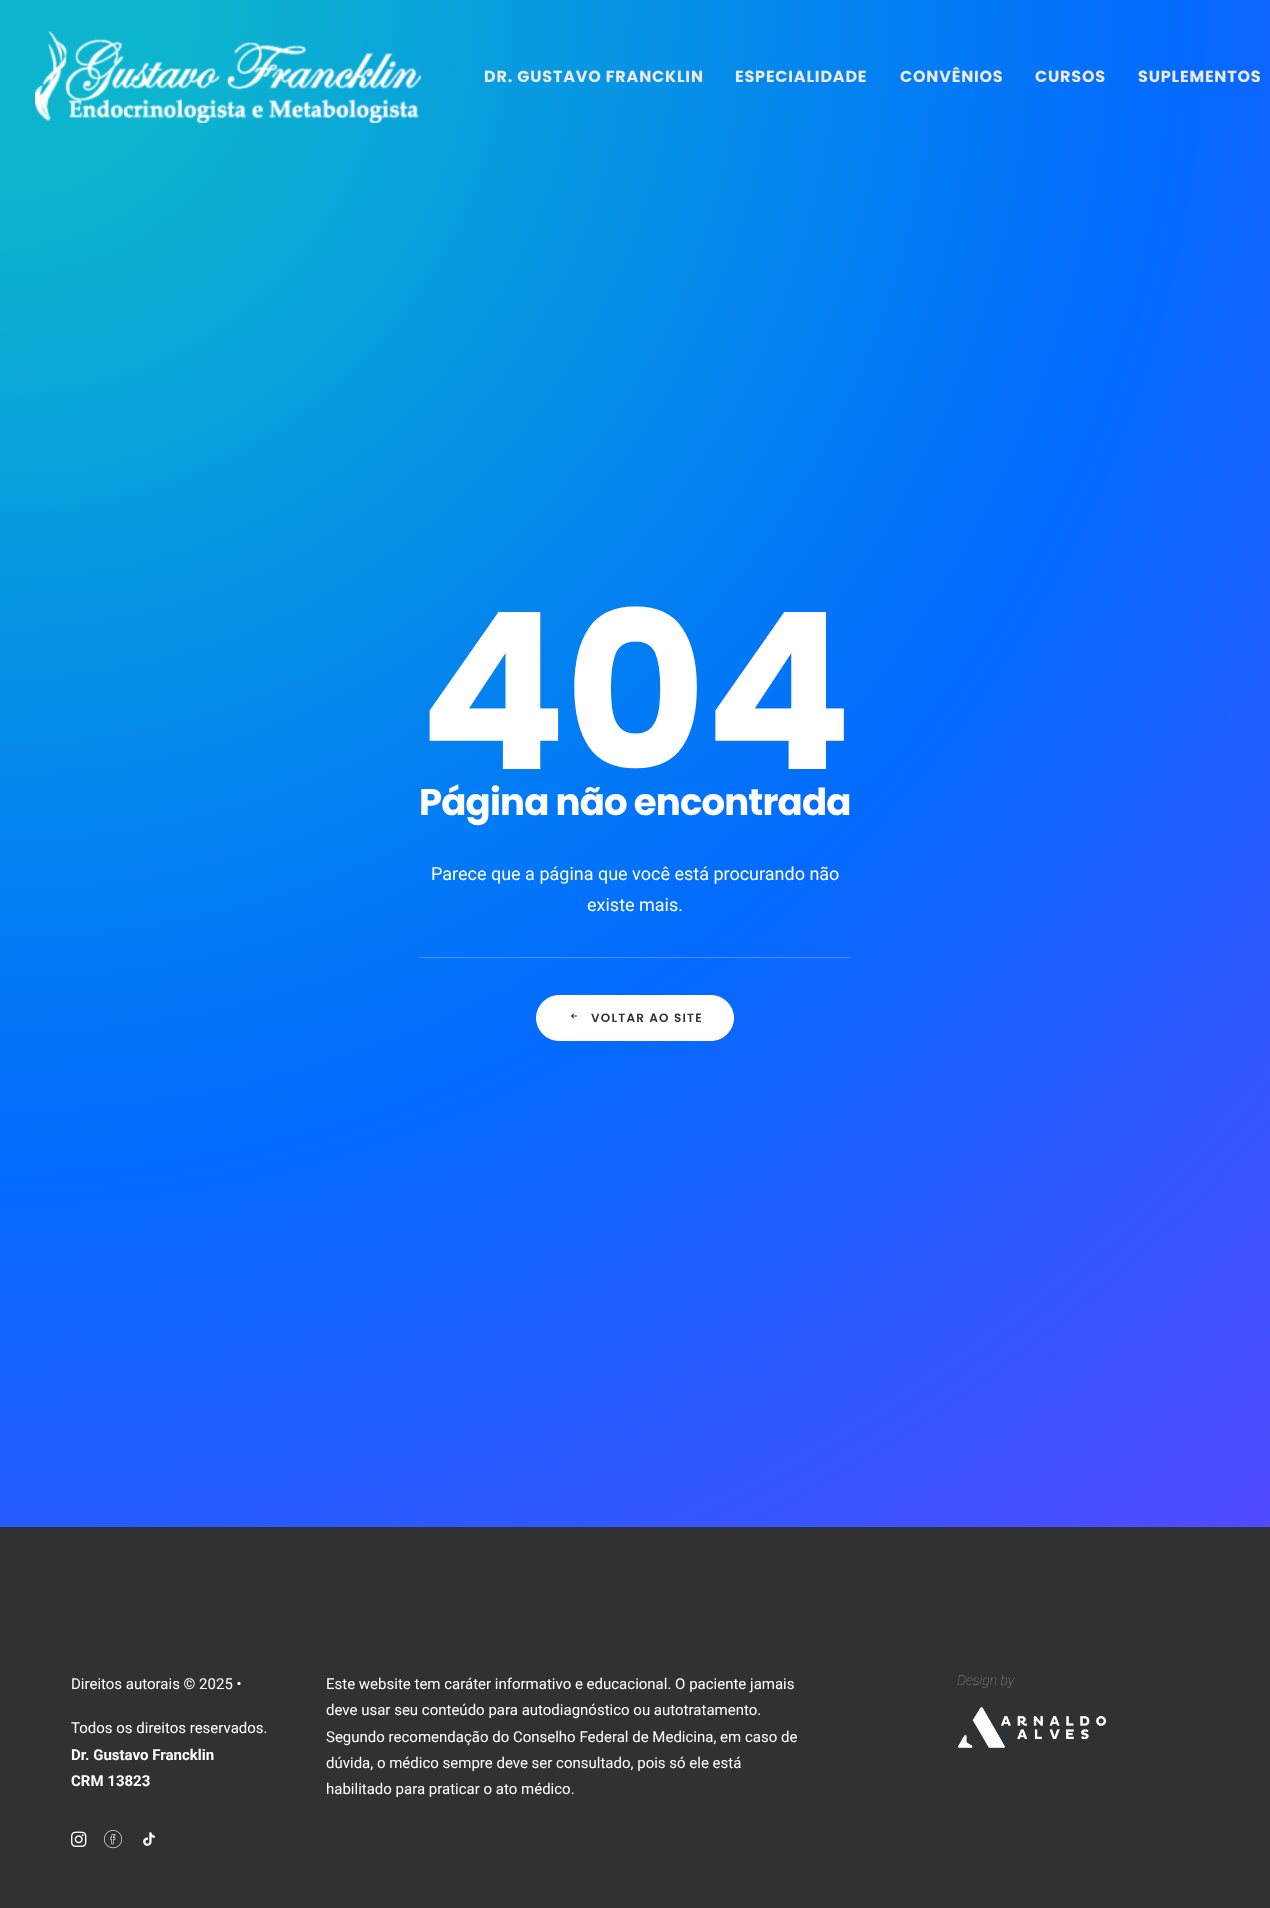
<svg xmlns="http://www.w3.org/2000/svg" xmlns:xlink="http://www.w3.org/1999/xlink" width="1270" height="1908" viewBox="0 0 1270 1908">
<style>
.cls-1{font:bold 16px Poppins;letter-spacing:0.8px;fill:#eaeaea}
.cls-2{font:bold 218px Poppins;letter-spacing:-2px;fill:#ffffff}
.cls-3{font:bold 37.1px Poppins;letter-spacing:-0.85px;fill:#ffffff}
.cls-4{font:18px Roboto;fill:#ffffff}
.cls-5{font:600 12px Poppins;letter-spacing:1.25px;fill:#303133}
.cls-6{font:15px Roboto;fill:#ffffff}
.cls-7{font:bold 15px Roboto;fill:#ffffff}
.cls-8{font:italic 100 14px Roboto;fill:#999999}
</style>
<defs>
<radialGradient id="g1" gradientUnits="userSpaceOnUse" cx="-1" cy="0" r="1987"><stop offset="0.09" stop-color="#0cb4ce"/><stop offset="0.48" stop-color="#006cff"/><stop offset="0.91" stop-color="#6442ff"/></radialGradient>
<radialGradient id="g2" gradientUnits="userSpaceOnUse" cx="-1" cy="0" r="2454"><stop offset="0.09" stop-color="#0cb4ce" stop-opacity="0.85"/><stop offset="0.48" stop-color="#006cff" stop-opacity="0.85"/><stop offset="0.91" stop-color="#6442ff" stop-opacity="0.85"/></radialGradient>
</defs>
<rect width="100%" height="100%" fill="#ffffff"/>
<rect fill="url(#g1)" x="0" y="0" width="1270" height="1527"/>
<rect fill="url(#g2)" x="0" y="0" width="1270" height="1527"/>
<image xlink:href="image0.png" x="35" y="31" width="386" height="92"/>
<rect fill="#ffffff" fill-opacity="0.25" x="419" y="957" width="432" height="1"/>
<rect fill="#ffffff" stroke="#ffffff" x="536.5" y="995.5" width="197" height="45" rx="22.5"/>
<image xlink:href="image1.png" x="570" y="1013" width="7" height="6"/>
<rect fill="#303133" x="0" y="1527" width="1270" height="381"/>
<image xlink:href="image2.png" x="71" y="1831" width="16" height="16"/>
<image xlink:href="image3.png" x="104" y="1830" width="18" height="19"/>
<image xlink:href="image4.png" x="143" y="1832" width="12" height="14"/>
<image xlink:href="image5.png" x="958" y="1707" width="149" height="41"/>
<text class="cls-1" x="484" y="82">DR. GUSTAVO FRANCKLIN</text>
<text class="cls-1" x="735" y="82">ESPECIALIDADE</text>
<text class="cls-1" x="900" y="82">CONVÊNIOS</text>
<text class="cls-1" x="1035" y="82">CURSOS</text>
<text class="cls-1" x="1138" y="82">SUPLEMENTOS</text>
<text class="cls-2" x="419" y="769">404</text>
<text class="cls-3" x="419" y="815">Página não encontrada</text>
<text class="cls-4" x="431" y="880">Parece que a página que você está procurando não</text>
<text class="cls-4" x="587" y="911">existe mais.</text>
<text class="cls-5" x="591" y="1022">VOLTAR AO SITE</text>
<text class="cls-6" x="71" y="1689">Direitos autorais © 2025 •</text>
<text class="cls-6" x="71" y="1733">Todos os direitos reservados.</text>
<text class="cls-7"><tspan x="71" y="1760">Dr. Gustavo Francklin</tspan><tspan x="71" y="1786">CRM 13823</tspan></text>
<text class="cls-6"><tspan x="326" y="1689">Este website tem caráter informativo e educacional. O paciente jamais</tspan><tspan x="326" y="1715">deve usar seu conteúdo para autodiagnóstico ou autotratamento.</tspan><tspan x="326" y="1742">Segundo recomendação do Conselho Federal de Medicina, em caso de</tspan><tspan x="326" y="1768">dúvida, o médico sempre deve ser consultado, pois só ele está</tspan><tspan x="326" y="1794">habilitado para praticar o ato médico.</tspan></text>
<text class="cls-8" x="957" y="1685">Design by</text>
</svg>
